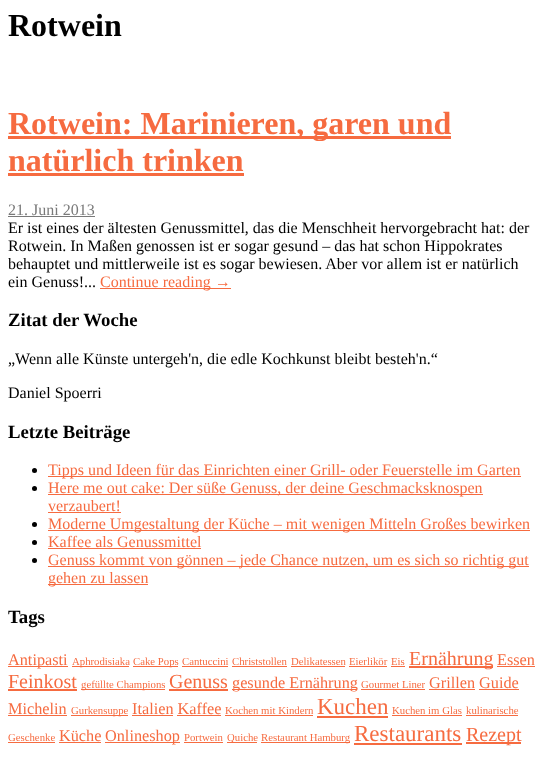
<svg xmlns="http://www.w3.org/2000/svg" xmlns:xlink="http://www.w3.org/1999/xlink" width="545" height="761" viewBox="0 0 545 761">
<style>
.cls-1{font:bold 32px Liberation Serif;fill:#000000}
.cls-2{font:bold 32px Liberation Serif;fill:#f66b40}
.cls-3{font:16px Liberation Serif;fill:#797979}
.cls-4{font:16px Liberation Serif;fill:#000000}
.cls-5{font:16px Liberation Serif;fill:#f66b40}
.cls-6{font:bold 18.75px Liberation Serif;fill:#000000}
.cls-7{font:16.25px Liberation Serif;fill:#f66b40}
.cls-8{font:10.75px Liberation Serif;fill:#f66b40}
.cls-9{font:20px Liberation Serif;fill:#f66b40}
.cls-10{font:23px Liberation Serif;fill:#f66b40}
</style>
<rect width="100%" height="100%" fill="#ffffff"/>
<rect fill="#f66b40" x="8" y="136" width="443" height="3"/>
<rect fill="#f66b40" x="8" y="173" width="236" height="3"/>
<rect fill="#797979" x="8" y="216" width="87" height="1"/>
<rect fill="#f66b40" x="100" y="288" width="131" height="1"/>
<circle fill="#000000" cx="34.5" cy="470.5" r="2.5"/>
<rect fill="#f66b40" x="48" y="476" width="473" height="1"/>
<circle fill="#000000" cx="34.5" cy="488.5" r="2.5"/>
<rect fill="#f66b40" x="48" y="494" width="435" height="1"/>
<rect fill="#f66b40" x="48" y="512" width="73" height="1"/>
<circle fill="#000000" cx="34.5" cy="524.5" r="2.5"/>
<rect fill="#f66b40" x="48" y="530" width="482" height="1"/>
<circle fill="#000000" cx="34.5" cy="542.5" r="2.5"/>
<rect fill="#f66b40" x="48" y="548" width="153" height="1"/>
<circle fill="#000000" cx="34.5" cy="560.5" r="2.5"/>
<rect fill="#f66b40" x="48" y="566" width="481" height="1"/>
<rect fill="#f66b40" x="48" y="584" width="100" height="1"/>
<rect fill="#f66b40" x="8" y="666" width="60" height="1"/>
<rect fill="#f66b40" x="72" y="666" width="57" height="1"/>
<rect fill="#f66b40" x="133" y="666" width="45" height="1"/>
<rect fill="#f66b40" x="182" y="666" width="46" height="1"/>
<rect fill="#f66b40" x="232" y="666" width="55" height="1"/>
<rect fill="#f66b40" x="291" y="666" width="54" height="1"/>
<rect fill="#f66b40" x="349" y="666" width="38" height="1"/>
<rect fill="#f66b40" x="391" y="666" width="14" height="1"/>
<rect fill="#f66b40" x="409" y="666" width="84" height="2"/>
<rect fill="#f66b40" x="497" y="666" width="38" height="1"/>
<rect fill="#f66b40" x="8" y="689" width="69" height="2"/>
<rect fill="#f66b40" x="81" y="689" width="84" height="1"/>
<rect fill="#f66b40" x="169" y="689" width="59" height="2"/>
<rect fill="#f66b40" x="232" y="689" width="125" height="1"/>
<rect fill="#f66b40" x="361" y="689" width="64" height="1"/>
<rect fill="#f66b40" x="429" y="689" width="46" height="1"/>
<rect fill="#f66b40" x="479" y="689" width="40" height="1"/>
<rect fill="#f66b40" x="8" y="715" width="59" height="1"/>
<rect fill="#f66b40" x="71" y="715" width="57" height="1"/>
<rect fill="#f66b40" x="132" y="715" width="41" height="1"/>
<rect fill="#f66b40" x="225" y="715" width="88" height="1"/>
<rect fill="#f66b40" x="317" y="716" width="71" height="2"/>
<rect fill="#f66b40" x="392" y="715" width="70" height="1"/>
<rect fill="#f66b40" x="466" y="715" width="52" height="1"/>
<rect fill="#f66b40" x="177" y="715" width="44" height="1"/>
<rect fill="#f66b40" x="8" y="742" width="47" height="1"/>
<rect fill="#f66b40" x="59" y="742" width="42" height="1"/>
<rect fill="#f66b40" x="105" y="742" width="75" height="1"/>
<rect fill="#f66b40" x="184" y="742" width="39" height="1"/>
<rect fill="#f66b40" x="227" y="742" width="30" height="1"/>
<rect fill="#f66b40" x="261" y="742" width="89" height="1"/>
<rect fill="#f66b40" x="354" y="743" width="108" height="2"/>
<rect fill="#f66b40" x="466" y="742" width="55" height="2"/>
<text class="cls-1" x="8" y="36">Rotwein</text>
<text class="cls-2"><tspan x="8" y="134">Rotwein: Marinieren, garen und</tspan><tspan x="8" y="171">natürlich trinken</tspan></text>
<text class="cls-3" x="8" y="215">21. Juni 2013</text>
<text class="cls-4"><tspan x="8" y="233">Er ist eines der ältesten Genussmittel, das die Menschheit hervorgebracht hat: der</tspan><tspan x="8" y="251">Rotwein. In Maßen genossen ist er sogar gesund – das hat schon Hippokrates</tspan><tspan x="8" y="269">behauptet und mittlerweile ist es sogar bewiesen. Aber vor allem ist er natürlich</tspan><tspan x="8" y="287">ein Genuss!...</tspan></text>
<text class="cls-5" x="100" y="287">Continue reading →</text>
<text class="cls-6" x="8" y="326">Zitat der Woche</text>
<text class="cls-4" x="8" y="364">„Wenn alle Künste untergeh'n, die edle Kochkunst bleibt besteh'n.“</text>
<text class="cls-4" x="8" y="398">Daniel Spoerri</text>
<text class="cls-6" x="8" y="438">Letzte Beiträge</text>
<text class="cls-5"><tspan x="48" y="475">Tipps und Ideen für das Einrichten einer Grill- oder Feuerstelle im Garten</tspan><tspan x="48" y="493">Here me out cake: Der süße Genuss, der deine Geschmacksknospen</tspan><tspan x="48" y="511">verzaubert!</tspan><tspan x="48" y="529">Moderne Umgestaltung der Küche – mit wenigen Mitteln Großes bewirken</tspan><tspan x="48" y="547">Kaffee als Genussmittel</tspan><tspan x="48" y="565">Genuss kommt von gönnen – jede Chance nutzen, um es sich so richtig gut</tspan><tspan x="48" y="583">gehen zu lassen</tspan></text>
<text class="cls-6" x="8" y="623">Tags</text>
<text class="cls-7" x="8" y="665">Antipasti</text>
<text class="cls-8" x="72" y="665">Aphrodisiaka</text>
<text class="cls-8" x="133" y="665">Cake Pops</text>
<text class="cls-8" x="182" y="665">Cantuccini</text>
<text class="cls-8" x="232" y="665">Christstollen</text>
<text class="cls-8" x="291" y="665">Delikatessen</text>
<text class="cls-8" x="349" y="665">Eierlikör</text>
<text class="cls-8" x="391" y="665">Eis</text>
<text class="cls-9" x="409" y="665">Ernährung</text>
<text class="cls-7" x="497" y="665">Essen</text>
<text class="cls-9" x="8" y="688">Feinkost</text>
<text class="cls-8" x="81" y="688">gefüllte Champions</text>
<text class="cls-9" x="169" y="688">Genuss</text>
<text class="cls-7" x="232" y="688">gesunde Ernährung</text>
<text class="cls-8" x="361" y="688">Gourmet Liner</text>
<text class="cls-7" x="429" y="688">Grillen Guide</text>
<text class="cls-7" x="8" y="714">Michelin</text>
<text class="cls-8" x="71" y="714">Gurkensuppe</text>
<text class="cls-7" x="132" y="714">Italien Kaffee</text>
<text class="cls-8" x="225" y="714">Kochen mit Kindern</text>
<text class="cls-10" x="317" y="714">Kuchen</text>
<text class="cls-8" x="392" y="714">Kuchen im Glas</text>
<text class="cls-8" x="466" y="714">kulinarische</text>
<text class="cls-8" x="8" y="741">Geschenke</text>
<text class="cls-7" x="59" y="741">Küche</text>
<text class="cls-7" x="105" y="741">Onlineshop</text>
<text class="cls-8" x="184" y="741">Portwein</text>
<text class="cls-8" x="227" y="741">Quiche</text>
<text class="cls-8" x="261" y="741">Restaurant Hamburg</text>
<text class="cls-10" x="354" y="741">Restaurants</text>
<text class="cls-9" x="466" y="741">Rezept</text>
</svg>
